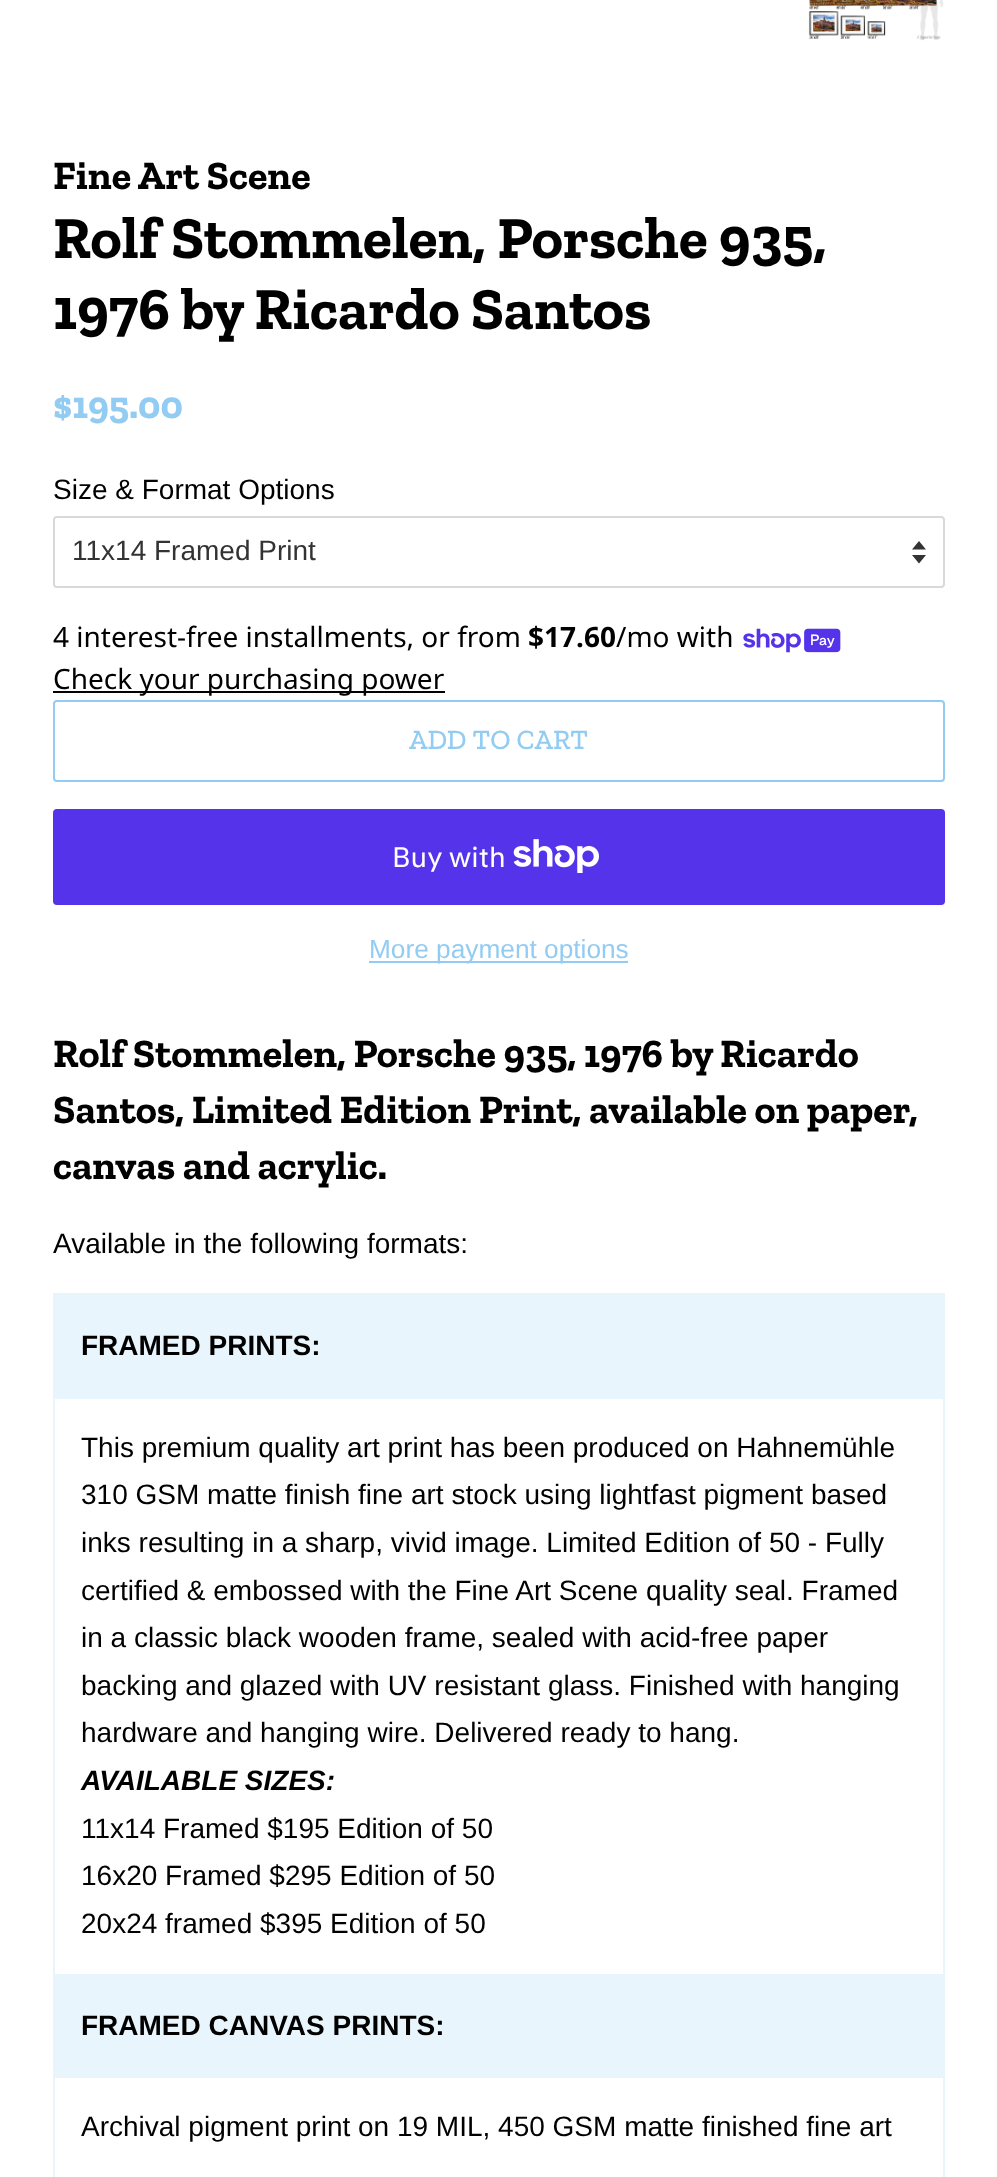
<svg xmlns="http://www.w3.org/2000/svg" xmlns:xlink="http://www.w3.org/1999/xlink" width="997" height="2177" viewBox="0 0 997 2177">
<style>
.cls-1{font:bold 40.25px Zilla Slab;fill:#000000}
.cls-2{font:bold 59.5px Zilla Slab;fill:#000000}
.cls-3{font:bold 39px Zilla Slab;fill:#92ccf2}
.cls-4{font:28px Liberation Sans;fill:#000000}
.cls-5{font:28px Liberation Sans;fill:#333333}
.cls-6{font:28px Noto Sans;fill:#000000}
.cls-7{font:bold 28px Noto Sans;fill:#000000}
.cls-8{font:500 28px Zilla Slab;fill:#92ccf2}
.cls-9{font:28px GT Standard;fill:#ffffff}
.cls-10{font:26.25px Liberation Sans;fill:#92ccf2}
.cls-11{font:bold 28px Liberation Sans;fill:#000000}
.cls-12{font:italic bold 28px Liberation Sans;fill:#000000}
</style>
<rect width="100%" height="100%" fill="#ffffff"/>
<image xlink:href="image0.png" x="808" y="0" width="136" height="41"/>
<path fill="#333333" d="M912 555L919 563.5L926 555ZM919 541L912 549.5H926Z"/>
<rect fill="none" stroke="#d9d9d9" stroke-width="2" x="54" y="517" width="890" height="70" rx="3"/>
<image xlink:href="image1.png" x="743" y="628" width="98" height="25"/>
<rect fill="#000000" x="53" y="691" width="392" height="2"/>
<rect fill="none" stroke="#92ccf2" stroke-width="2" x="54" y="701" width="890" height="80" rx="3"/>
<rect fill="#5433eb" x="53" y="809" width="892" height="96" rx="4"/>
<image xlink:href="image2.png" x="513" y="839" width="86" height="34"/>
<rect fill="#92ccf2" x="369" y="961" width="259" height="2"/>
<rect fill="#e9f5fc" x="55" y="1295" width="890" height="102"/>
<rect fill="#e9f5fc" x="53" y="1293" width="892" height="2"/>
<rect fill="#e9f5fc" x="53" y="1397" width="892" height="2"/>
<rect fill="#e9f5fc" x="53" y="1974" width="892" height="2"/>
<rect fill="#e9f5fc" x="53" y="2076" width="892" height="2"/>
<rect fill="#e9f5fc" x="53" y="2076" width="2" height="101"/>
<rect fill="#e9f5fc" x="53" y="1974" width="2" height="103"/>
<rect fill="#e9f5fc" x="53" y="1397" width="2" height="579"/>
<rect fill="#e9f5fc" x="53" y="1293" width="2" height="105"/>
<rect fill="#e9f5fc" x="943" y="1397" width="2" height="579"/>
<rect fill="#e9f5fc" x="55" y="1976" width="890" height="100"/>
<rect fill="#e9f5fc" x="943" y="2076" width="2" height="101"/>
<text class="cls-1" x="53" y="189">Fine Art Scene</text>
<text class="cls-2"><tspan x="53" y="258">Rolf Stommelen, Porsche 935,</tspan><tspan x="53" y="329">1976 by Ricardo Santos</tspan></text>
<text class="cls-3" x="53" y="418">$195.00</text>
<text class="cls-4" x="53" y="499">Size &amp; Format Options</text>
<text class="cls-5" x="72" y="560">11x14 Framed Print</text>
<text class="cls-6" x="53" y="647">4 interest-free installments, or from</text>
<text class="cls-7" x="528" y="647">$17.60</text>
<text class="cls-6" x="616" y="647">/mo with</text>
<text class="cls-6" x="53" y="689">Check your purchasing power</text>
<text class="cls-8" x="409" y="749">ADD TO CART</text>
<text class="cls-9" x="392" y="867">Buy with</text>
<text class="cls-10" x="369" y="958">More payment options</text>
<text class="cls-1"><tspan x="53" y="1067">Rolf Stommelen, Porsche 935, 1976 by Ricardo</tspan><tspan x="53" y="1123">Santos, Limited Edition Print, available on paper,</tspan><tspan x="53" y="1179">canvas and acrylic.</tspan></text>
<text class="cls-4" x="53" y="1253">Available in the following formats:</text>
<text class="cls-11" x="81" y="1355">FRAMED PRINTS:</text>
<text class="cls-4"><tspan x="81" y="1457">This premium quality art print has been produced on Hahnemühle</tspan><tspan x="81" y="1504">310 GSM matte finish fine art stock using lightfast pigment based</tspan><tspan x="81" y="1552">inks resulting in a sharp, vivid image. Limited Edition of 50 - Fully</tspan><tspan x="81" y="1600">certified &amp; embossed with the Fine Art Scene quality seal. Framed</tspan><tspan x="81" y="1647">in a classic black wooden frame, sealed with acid-free paper</tspan><tspan x="81" y="1695">backing and glazed with UV resistant glass. Finished with hanging</tspan><tspan x="81" y="1742">hardware and hanging wire. Delivered ready to hang.</tspan></text>
<text class="cls-12" x="81" y="1790">AVAILABLE SIZES:</text>
<text class="cls-4"><tspan x="81" y="1838">11x14 Framed $195 Edition of 50</tspan><tspan x="81" y="1885">16x20 Framed $295 Edition of 50</tspan><tspan x="81" y="1933">20x24 framed $395 Edition of 50</tspan></text>
<text class="cls-11" x="81" y="2035">FRAMED CANVAS PRINTS:</text>
<text class="cls-4" x="81" y="2136">Archival pigment print on 19 MIL, 450 GSM matte finished fine art</text>
</svg>
